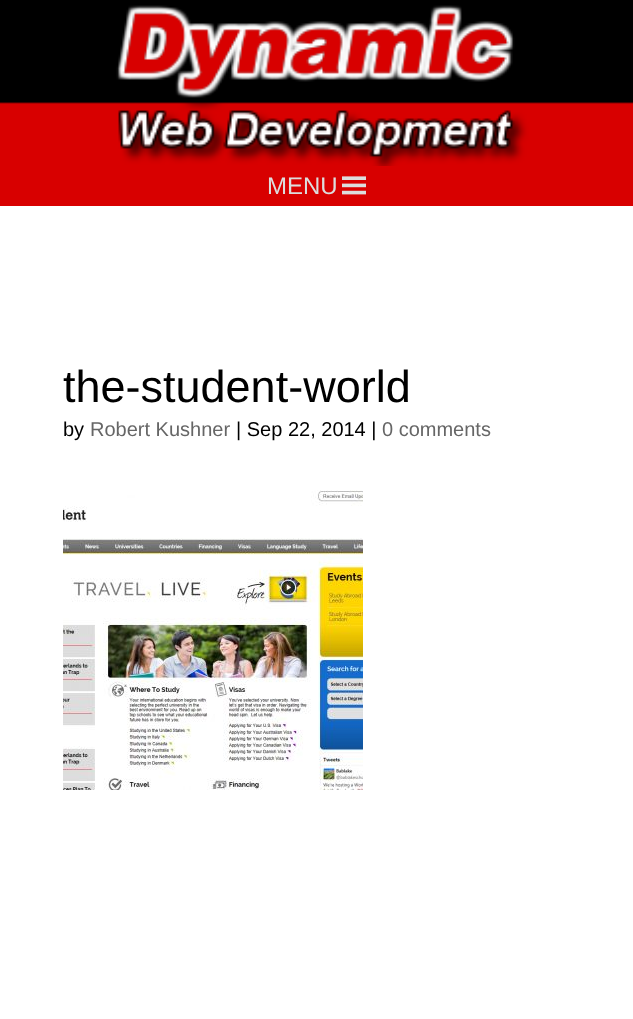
<svg xmlns="http://www.w3.org/2000/svg" xmlns:xlink="http://www.w3.org/1999/xlink" width="633" height="1019" viewBox="0 0 633 1019">
<style>
.cls-1{font:24px Liberation Sans;fill:#dddddd}
.cls-2{font:45px Liberation Sans;fill:#000000}
.cls-3{font:20px Liberation Sans;fill:#000000}
.cls-4{font:20px Liberation Sans;fill:#666666}
</style>
<rect width="100%" height="100%" fill="#ffffff"/>
<image xlink:href="image0.png" x="0" y="0" width="633" height="166"/>
<rect fill="#d80000" x="0" y="166" width="633" height="40"/>
<image xlink:href="image1.png" x="342" y="176" width="24" height="19"/>
<image xlink:href="image2.png" x="63" y="490" width="300" height="300"/>
<text class="cls-1" x="267" y="194">MENU</text>
<text class="cls-2" x="63" y="402">the-student-world</text>
<text class="cls-3" x="63" y="436">by</text>
<text class="cls-4" x="90" y="436">Robert Kushner</text>
<text class="cls-3" x="236" y="436">| Sep 22, 2014 |</text>
<text class="cls-4" x="382" y="436">0 comments</text>
</svg>
